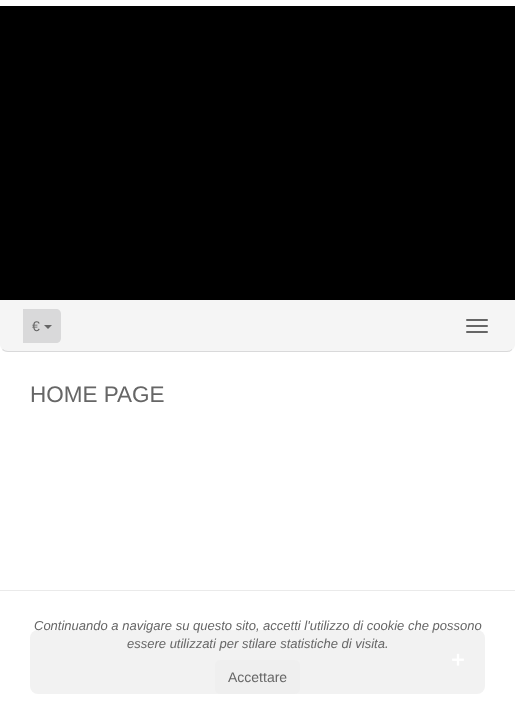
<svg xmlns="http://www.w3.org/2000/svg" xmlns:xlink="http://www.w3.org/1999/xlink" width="515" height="714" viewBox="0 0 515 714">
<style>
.cls-1{font:14px Liberation Sans;fill:#666666}
.cls-2{font:22.5px Liberation Sans;fill:#666666}
.cls-3{font:italic 13px Liberation Sans;fill:#666666}
</style>
<rect width="100%" height="100%" fill="#ffffff"/>
<rect fill="#000000" x="0" y="6" width="515" height="294"/>
<path fill="#f5f5f5" d="M0 300H515V344C515 348.5 511.5 352 507 352H8C3.5 352 0 348.5 0 344Z"/>
<path fill="#d9d9da" d="M8 352H507C509 352 511 351 512 350V349C511 350 509 351 507 351H8C6 351 4 350 3 349L2 350C4 351 6 352 8 352Z"/>
<path fill="#d9d9da" d="M23 309H56C59 309 61 311 61 314V338C61 341 59 343 56 343H23Z"/>
<path fill="#666666" d="M44 325H52L48 329Z"/>
<rect fill="#666666" x="466" y="319" width="22" height="2" rx="1"/>
<rect fill="#666666" x="466" y="325" width="22" height="2" rx="1"/>
<rect fill="#666666" x="466" y="331" width="22" height="2" rx="1"/>
<rect fill="#f2f2f2" x="30" y="630" width="455" height="64" rx="8"/>
<image xlink:href="image0.png" x="452" y="653" width="12" height="13"/>
<rect fill="#eaeaea" x="0" y="590" width="515" height="1"/>
<rect fill="#efefef" x="215" y="660" width="85" height="34" rx="5"/>
<text class="cls-1" x="32" y="331">€</text>
<text class="cls-2" x="30" y="402">HOME PAGE</text>
<text class="cls-3" x="34" y="630">Continuando a navigare su questo sito, accetti l'utilizzo di cookie che possono</text>
<text class="cls-3" x="127" y="648">essere utilizzati per stilare statistiche di visita.</text>
<text class="cls-1" x="228" y="682">Accettare</text>
</svg>
